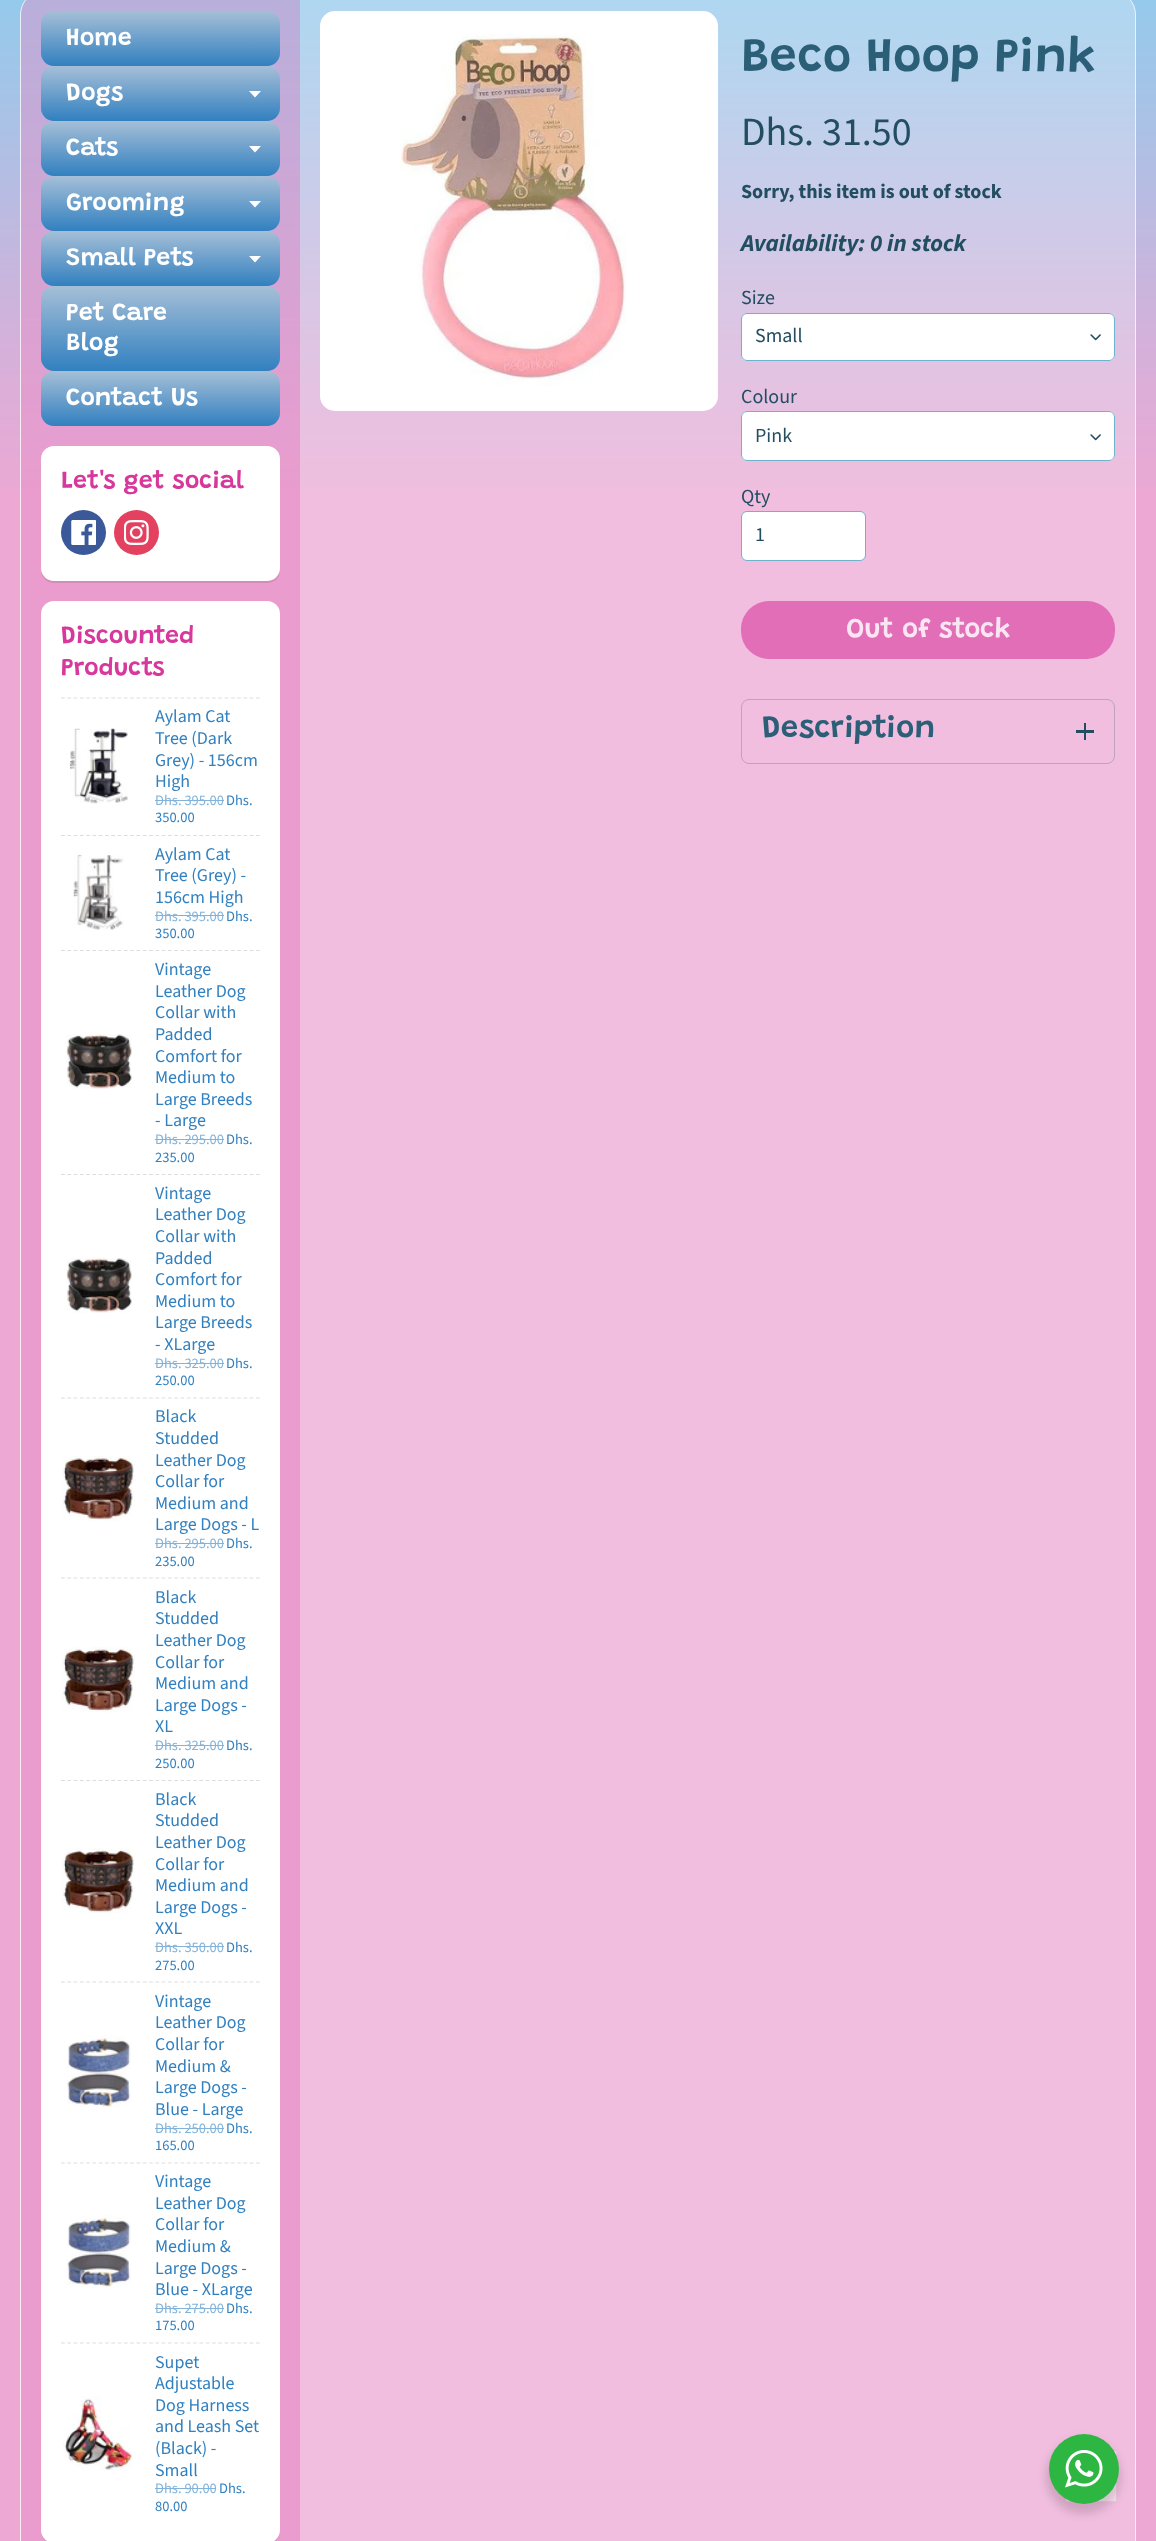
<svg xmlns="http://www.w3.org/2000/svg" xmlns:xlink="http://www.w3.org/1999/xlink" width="1156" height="2541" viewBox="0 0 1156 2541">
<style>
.cls-1{font:600 25px Grandstander;fill:#ffffff}
.cls-2{font:600 25px Grandstander;fill:#d7389c}
.cls-3{font:18px Source Sans Pro;fill:#3180c0}
.cls-4{font:14.5px Source Sans Pro;fill:#83b3d9}
.cls-5{font:14.5px Source Sans Pro;fill:#3180c0}
.cls-6{font:600 48.75px Grandstander;fill:#2b5f77}
.cls-7{font:40px Source Sans Pro;fill:#234d61}
.cls-8{font:bold 20px Source Sans Pro;fill:#234d61}
.cls-9{font:italic bold 24px Source Sans Pro;fill:#234d61}
.cls-10{font:20px Source Sans Pro;fill:#234d61}
.cls-11{font:600 27.5px Grandstander;fill:#fae5f2}
.cls-12{font:600 31.25px Grandstander;fill:#2b5f77}
</style>
<defs>
<linearGradient id="g1" gradientUnits="userSpaceOnUse" x1="161" y1="11" x2="161" y2="66"><stop offset="0" stop-color="#a6bfd7"/><stop offset="1" stop-color="#3180c0"/></linearGradient>
<linearGradient id="g2" gradientUnits="userSpaceOnUse" x1="161" y1="66" x2="161" y2="121"><stop offset="0" stop-color="#a6bfd7"/><stop offset="1" stop-color="#3180c0"/></linearGradient>
<linearGradient id="g3" gradientUnits="userSpaceOnUse" x1="161" y1="121" x2="161" y2="176"><stop offset="0" stop-color="#a6bfd7"/><stop offset="1" stop-color="#3180c0"/></linearGradient>
<linearGradient id="g4" gradientUnits="userSpaceOnUse" x1="161" y1="176" x2="161" y2="231"><stop offset="0" stop-color="#a6bfd7"/><stop offset="1" stop-color="#3180c0"/></linearGradient>
<linearGradient id="g5" gradientUnits="userSpaceOnUse" x1="161" y1="231" x2="161" y2="286"><stop offset="0" stop-color="#a6bfd7"/><stop offset="1" stop-color="#3180c0"/></linearGradient>
<linearGradient id="g6" gradientUnits="userSpaceOnUse" x1="161" y1="286" x2="161" y2="371"><stop offset="0" stop-color="#a6bfd7"/><stop offset="1" stop-color="#3180c0"/></linearGradient>
<linearGradient id="g7" gradientUnits="userSpaceOnUse" x1="161" y1="371" x2="161" y2="426"><stop offset="0" stop-color="#a6bfd7"/><stop offset="1" stop-color="#3180c0"/></linearGradient>
</defs>
<rect width="100%" height="100%" fill="#eda8d4"/>
<image xlink:href="image0.png" x="0" y="0" width="1156" height="487"/>
<rect fill="#ffffff" fill-opacity="0.25" x="20" y="-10" width="1116" height="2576" rx="25"/>
<rect fill="none" stroke="#ffffff" stroke-opacity="0.7" x="20.5" y="-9.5" width="1115" height="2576" rx="24.5"/>
<path fill="#d7389c" fill-opacity="0.25" d="M45-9H300V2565H45C31.5 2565 21 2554.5 21 2541V15C21 1.5 31.5-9 45-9Z"/>
<rect fill="url(#g1)" x="41" y="11" width="239" height="55" rx="13"/>
<rect fill="url(#g2)" x="41" y="66" width="239" height="55" rx="13"/>
<path fill="#ffffff" d="M249 91H261L255 97.5Z"/>
<rect fill="url(#g3)" x="41" y="121" width="239" height="55" rx="13"/>
<path fill="#ffffff" d="M249 146H261L255 152.5Z"/>
<rect fill="url(#g4)" x="41" y="176" width="239" height="55" rx="13"/>
<path fill="#ffffff" d="M249 201H261L255 207.5Z"/>
<rect fill="url(#g5)" x="41" y="231" width="239" height="55" rx="13"/>
<path fill="#ffffff" d="M249 256H261L255 262.5Z"/>
<rect fill="url(#g6)" x="41" y="286" width="239" height="85" rx="13"/>
<rect fill="url(#g7)" x="41" y="371" width="239" height="55" rx="13"/>
<rect fill="#000000" fill-opacity="0.1" filter="blur(0.5px)" x="41" y="448" width="239" height="135" rx="13"/>
<rect fill="#ffffff" x="41" y="446" width="239" height="135" rx="13"/>
<circle fill="#3b5998" cx="83.5" cy="532.5" r="22.5"/>
<image xlink:href="image1.png" x="71" y="520" width="25" height="25"/>
<circle fill="#e4405f" cx="136.5" cy="532.5" r="22.5"/>
<image xlink:href="image2.png" x="124" y="520" width="25" height="25"/>
<rect fill="#000000" fill-opacity="0.1" filter="blur(0.5px)" x="41" y="603" width="239" height="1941" rx="13"/>
<rect fill="#ffffff" x="41" y="601" width="239" height="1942" rx="13"/>
<path fill="none" stroke="#dddddd" stroke-width="1.2" stroke-dasharray="3.75 2.54" d="M61 698H260"/>
<image xlink:href="image3.png" x="70" y="728" width="58" height="76"/>
<rect fill="#83b3d9" x="155" y="800" width="69" height="1"/>
<path fill="none" stroke="#dddddd" stroke-width="1.2" stroke-dasharray="3.75 2.54" d="M61 835.5H260"/>
<image xlink:href="image4.png" x="73" y="854" width="51" height="76"/>
<rect fill="#83b3d9" x="155" y="915" width="69" height="1"/>
<path fill="none" stroke="#dddddd" stroke-width="1.2" stroke-dasharray="3.75 2.54" d="M61 950.5H260"/>
<image xlink:href="image5.png" x="66" y="1034" width="66" height="55"/>
<rect fill="#83b3d9" x="155" y="1139" width="69" height="1"/>
<path fill="none" stroke="#dddddd" stroke-width="1.2" stroke-dasharray="3.75 2.54" d="M61 1174.5H260"/>
<image xlink:href="image6.png" x="66" y="1257" width="66" height="56"/>
<rect fill="#83b3d9" x="155" y="1363" width="69" height="1"/>
<path fill="none" stroke="#dddddd" stroke-width="1.2" stroke-dasharray="3.75 2.54" d="M61 1398H260"/>
<image xlink:href="image7.png" x="61" y="1456" width="74" height="65"/>
<rect fill="#83b3d9" x="155" y="1543" width="69" height="1"/>
<path fill="none" stroke="#dddddd" stroke-width="1.2" stroke-dasharray="3.75 2.54" d="M61 1578H260"/>
<image xlink:href="image8.png" x="61" y="1647" width="74" height="66"/>
<rect fill="#83b3d9" x="155" y="1745" width="69" height="1"/>
<path fill="none" stroke="#dddddd" stroke-width="1.2" stroke-dasharray="3.75 2.54" d="M61 1780.5H260"/>
<image xlink:href="image9.png" x="61" y="1848" width="74" height="66"/>
<rect fill="#83b3d9" x="155" y="1946" width="69" height="1"/>
<path fill="none" stroke="#dddddd" stroke-width="1.2" stroke-dasharray="3.75 2.54" d="M61 1982H260"/>
<image xlink:href="image10.png" x="67" y="2035" width="64" height="74"/>
<rect fill="#83b3d9" x="155" y="2128" width="69" height="1"/>
<path fill="none" stroke="#dddddd" stroke-width="1.2" stroke-dasharray="3.75 2.54" d="M61 2163H260"/>
<image xlink:href="image10.png" x="67" y="2215" width="64" height="74"/>
<rect fill="#83b3d9" x="155" y="2308" width="69" height="1"/>
<path fill="none" stroke="#dddddd" stroke-width="1.2" stroke-dasharray="3.75 2.54" d="M61 2343H260"/>
<image xlink:href="image11.png" x="62" y="2396" width="71" height="75"/>
<rect fill="#83b3d9" x="155" y="2488" width="61" height="1"/>
<rect fill="#ffffff" x="320" y="11" width="398" height="400" rx="15"/>
<image xlink:href="image12.png" x="400" y="34" width="227" height="352"/>
<rect fill="#ffffff" x="741" y="313" width="374" height="48" rx="6"/>
<image xlink:href="image13.png" x="1090" y="334" width="11" height="7"/>
<rect fill="none" stroke="#70b1cc" x="741.5" y="313.5" width="373" height="47" rx="5.5"/>
<rect fill="#ffffff" x="741" y="411" width="374" height="50" rx="6"/>
<image xlink:href="image13.png" x="1090" y="434" width="11" height="7"/>
<rect fill="none" stroke="#70b1cc" x="741.5" y="411.5" width="373" height="49" rx="5.5"/>
<rect fill="#ffffff" stroke="#70b1cc" x="741.5" y="511.5" width="124" height="49" rx="5.5"/>
<rect fill="#e26eb7" x="741" y="601" width="374" height="58" rx="28"/>
<rect fill="none" stroke="#bea2bf" x="741.5" y="699.5" width="373" height="64" rx="7.5"/>
<rect fill="#234d61" x="1084" y="723" width="2" height="17"/>
<rect fill="#234d61" x="1076" y="730" width="18" height="3"/>
<image xlink:href="image15.png" x="1066" y="2451" width="51" height="51"/>
<rect fill="#000000" fill-opacity="0.14" filter="blur(5px)" x="1046" y="2439" width="75" height="75" rx="37.5"/>
<circle fill="#2db742" cx="1084" cy="2469" r="35"/>
<image xlink:href="image14.png" x="1065" y="2450" width="38" height="38"/>
<text class="cls-1" x="66" y="45">Home</text>
<text class="cls-1" x="66" y="100">Dogs</text>
<text class="cls-1" x="66" y="155">Cats</text>
<text class="cls-1" x="66" y="210">Grooming</text>
<text class="cls-1" x="66" y="265">Small Pets</text>
<text class="cls-1"><tspan x="66" y="320">Pet Care</tspan><tspan x="66" y="350">Blog</tspan></text>
<text class="cls-1" x="66" y="405">Contact Us</text>
<text class="cls-2" x="61" y="488">Let's get social</text>
<text class="cls-2"><tspan x="61" y="643">Discounted</tspan><tspan x="61" y="675">Products</tspan></text>
<text class="cls-3"><tspan x="155" y="722">Aylam Cat</tspan><tspan x="155" y="744">Tree (Dark</tspan><tspan x="155" y="766">Grey) - 156cm</tspan><tspan x="155" y="787">High</tspan></text>
<text class="cls-4" x="155" y="805">Dhs. 395.00</text>
<text class="cls-5" x="226" y="805">Dhs.</text>
<text class="cls-5" x="155" y="822">350.00</text>
<text class="cls-3"><tspan x="155" y="860">Aylam Cat</tspan><tspan x="155" y="881">Tree (Grey) -</tspan><tspan x="155" y="903">156cm High</tspan></text>
<text class="cls-4" x="155" y="921">Dhs. 395.00</text>
<text class="cls-5" x="226" y="921">Dhs.</text>
<text class="cls-5" x="155" y="938">350.00</text>
<text class="cls-3"><tspan x="155" y="975">Vintage</tspan><tspan x="155" y="997">Leather Dog</tspan><tspan x="155" y="1018">Collar with</tspan><tspan x="155" y="1040">Padded</tspan><tspan x="155" y="1062">Comfort for</tspan><tspan x="155" y="1083">Medium to</tspan><tspan x="155" y="1105">Large Breeds</tspan><tspan x="155" y="1126">- Large</tspan></text>
<text class="cls-4" x="155" y="1144">Dhs. 295.00</text>
<text class="cls-5" x="226" y="1144">Dhs.</text>
<text class="cls-5" x="155" y="1162">235.00</text>
<text class="cls-3"><tspan x="155" y="1199">Vintage</tspan><tspan x="155" y="1220">Leather Dog</tspan><tspan x="155" y="1242">Collar with</tspan><tspan x="155" y="1264">Padded</tspan><tspan x="155" y="1285">Comfort for</tspan><tspan x="155" y="1307">Medium to</tspan><tspan x="155" y="1328">Large Breeds</tspan><tspan x="155" y="1350">- XLarge</tspan></text>
<text class="cls-4" x="155" y="1368">Dhs. 325.00</text>
<text class="cls-5" x="226" y="1368">Dhs.</text>
<text class="cls-5" x="155" y="1385">250.00</text>
<text class="cls-3"><tspan x="155" y="1422">Black</tspan><tspan x="155" y="1444">Studded</tspan><tspan x="155" y="1466">Leather Dog</tspan><tspan x="155" y="1487">Collar for</tspan><tspan x="155" y="1509">Medium and</tspan><tspan x="155" y="1530">Large Dogs - L</tspan></text>
<text class="cls-4" x="155" y="1548">Dhs. 295.00</text>
<text class="cls-5" x="226" y="1548">Dhs.</text>
<text class="cls-5" x="155" y="1566">235.00</text>
<text class="cls-3"><tspan x="155" y="1603">Black</tspan><tspan x="155" y="1624">Studded</tspan><tspan x="155" y="1646">Leather Dog</tspan><tspan x="155" y="1668">Collar for</tspan><tspan x="155" y="1689">Medium and</tspan><tspan x="155" y="1711">Large Dogs -</tspan><tspan x="155" y="1732">XL</tspan></text>
<text class="cls-4" x="155" y="1750">Dhs. 325.00</text>
<text class="cls-5" x="226" y="1750">Dhs.</text>
<text class="cls-5" x="155" y="1768">250.00</text>
<text class="cls-3"><tspan x="155" y="1805">Black</tspan><tspan x="155" y="1826">Studded</tspan><tspan x="155" y="1848">Leather Dog</tspan><tspan x="155" y="1870">Collar for</tspan><tspan x="155" y="1891">Medium and</tspan><tspan x="155" y="1913">Large Dogs -</tspan><tspan x="155" y="1934">XXL</tspan></text>
<text class="cls-4" x="155" y="1952">Dhs. 350.00</text>
<text class="cls-5" x="226" y="1952">Dhs.</text>
<text class="cls-5" x="155" y="1970">275.00</text>
<text class="cls-3"><tspan x="155" y="2007">Vintage</tspan><tspan x="155" y="2028">Leather Dog</tspan><tspan x="155" y="2050">Collar for</tspan><tspan x="155" y="2072">Medium &amp;</tspan><tspan x="155" y="2093">Large Dogs -</tspan><tspan x="155" y="2115">Blue - Large</tspan></text>
<text class="cls-4" x="155" y="2133">Dhs. 250.00</text>
<text class="cls-5" x="226" y="2133">Dhs.</text>
<text class="cls-5" x="155" y="2150">165.00</text>
<text class="cls-3"><tspan x="155" y="2187">Vintage</tspan><tspan x="155" y="2209">Leather Dog</tspan><tspan x="155" y="2230">Collar for</tspan><tspan x="155" y="2252">Medium &amp;</tspan><tspan x="155" y="2274">Large Dogs -</tspan><tspan x="155" y="2295">Blue - XLarge</tspan></text>
<text class="cls-4" x="155" y="2313">Dhs. 275.00</text>
<text class="cls-5" x="226" y="2313">Dhs.</text>
<text class="cls-5" x="155" y="2330">175.00</text>
<text class="cls-3"><tspan x="155" y="2368">Supet</tspan><tspan x="155" y="2389">Adjustable</tspan><tspan x="155" y="2411">Dog Harness</tspan><tspan x="155" y="2432">and Leash Set</tspan><tspan x="155" y="2454">(Black) -</tspan><tspan x="155" y="2476">Small</tspan></text>
<text class="cls-4" x="155" y="2493">Dhs. 90.00</text>
<text class="cls-5" x="219" y="2493">Dhs.</text>
<text class="cls-5" x="155" y="2511">80.00</text>
<text class="cls-6" x="741" y="71">Beco Hoop Pink</text>
<text class="cls-7" x="741" y="145">Dhs. 31.50</text>
<text class="cls-8" x="741" y="198">Sorry, this item is out of stock</text>
<text class="cls-9" x="741" y="251">Availability: 0 in stock</text>
<text class="cls-10" x="741" y="304">Size</text>
<text class="cls-10" x="755" y="342">Small</text>
<text class="cls-10" x="741" y="403">Colour</text>
<text class="cls-10" x="755" y="442">Pink</text>
<text class="cls-10" x="741" y="503">Qty</text>
<text class="cls-10" x="755" y="541">1</text>
<text class="cls-11" x="846" y="637">Out of stock</text>
<text class="cls-12" x="762" y="737">Description</text>
</svg>
